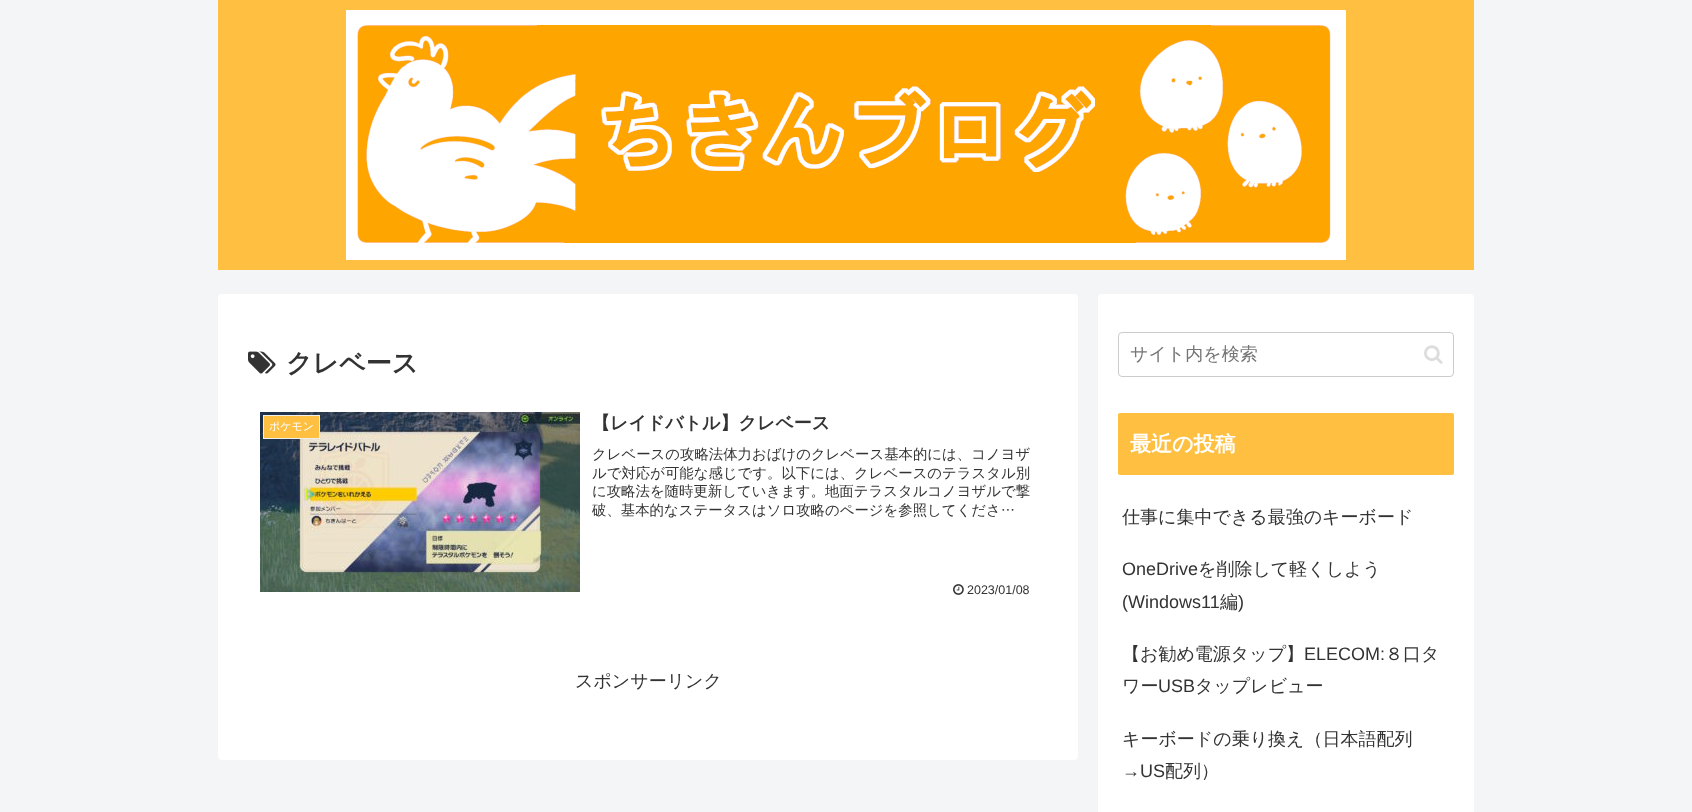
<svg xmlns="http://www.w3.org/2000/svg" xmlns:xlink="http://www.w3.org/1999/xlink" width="1692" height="812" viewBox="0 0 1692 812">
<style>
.cls-1{font:bold 26px WenQuanYi Zen Hei;fill:#333333}
.cls-2{font:500 11px WenQuanYi Zen Hei;fill:#ffffff}
.cls-3{font:bold 18px WenQuanYi Zen Hei;fill:#333333}
.cls-4{font:500 14.4px WenQuanYi Zen Hei;fill:#333333}
.cls-5{font:12.5px Liberation Sans;fill:#333333}
.cls-6{font:500 18px WenQuanYi Zen Hei;fill:#333333}
.cls-7{font:500 18px WenQuanYi Zen Hei;fill:#757575}
.cls-8{font:bold 21px WenQuanYi Zen Hei;fill:#ffffff}
.cls-9{font:18px Liberation Sans;fill:#333333}
</style>
<rect width="100%" height="100%" fill="#f4f5f7"/>
<rect fill="#ffc042" x="218" y="0" width="1256" height="270"/>
<image xlink:href="image0.png" x="346" y="10" width="1000" height="250"/>
<rect fill="#ffffff" x="218" y="294" width="860" height="466" rx="4"/>
<image xlink:href="image1.png" x="248" y="351" width="28" height="23"/>
<image xlink:href="image2.png" x="260" y="412" width="320" height="180"/>
<rect fill="#ffc042" stroke="#eeeeee" x="263.5" y="415.5" width="56" height="23"/>
<image xlink:href="image3.png" x="953" y="584" width="11" height="11"/>
<rect fill="#ffffff" x="1098" y="294" width="376" height="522" rx="4"/>
<rect fill="none" stroke="#cccccc" x="1118.5" y="332.5" width="335" height="44" rx="3.5"/>
<image xlink:href="image4.png" x="1424" y="345" width="19" height="19"/>
<rect fill="#ffc042" x="1118" y="413" width="336" height="62" rx="2"/>
<text class="cls-1" x="286" y="372">クレベース</text>
<text class="cls-2" x="269" y="430">ポケモン</text>
<text class="cls-3" x="592" y="429">【レイドバトル】クレベース</text>
<text class="cls-4"><tspan x="592" y="459">クレベースの攻略法体力おばけのクレベース基本的には、コノヨザ</tspan><tspan x="592" y="478">ルで対応が可能な感じです。以下には、クレベースのテラスタル別</tspan><tspan x="592" y="496">に攻略法を随時更新していきます。地面テラスタルコノヨザルで撃</tspan><tspan x="592" y="515">破、基本的なステータスはソロ攻略のページを参照してくださ…</tspan></text>
<text class="cls-5" x="967" y="594">2023/01/08</text>
<text class="cls-6" x="575" y="687">スポンサーリンク</text>
<text class="cls-7" x="1130" y="360">サイト内を検索</text>
<text class="cls-8" x="1130" y="451">最近の投稿</text>
<text class="cls-6" x="1122" y="523">仕事に集中できる最強のキーボード</text>
<text class="cls-9" x="1122" y="575">OneDrive</text>
<text class="cls-6" x="1198" y="575">を削除して軽くしよう</text>
<text class="cls-9" x="1122" y="608">(Windows11</text>
<text class="cls-6" x="1220" y="608">編</text>
<text class="cls-9" x="1238" y="608">)</text>
<text class="cls-6" x="1122" y="660">【お勧め電源タップ】</text>
<text class="cls-9" x="1304" y="660">ELECOM:</text>
<text class="cls-6" x="1385" y="660">８口タ</text>
<text class="cls-6" x="1122" y="692">ワー</text>
<text class="cls-9" x="1158" y="692">USB</text>
<text class="cls-6" x="1195" y="692">タップレビュー</text>
<text class="cls-6" x="1122" y="745">キーボードの乗り換え（日本語配列</text>
<text class="cls-9" x="1122" y="777">→US</text>
<text class="cls-6" x="1165" y="777">配列）</text>
</svg>
